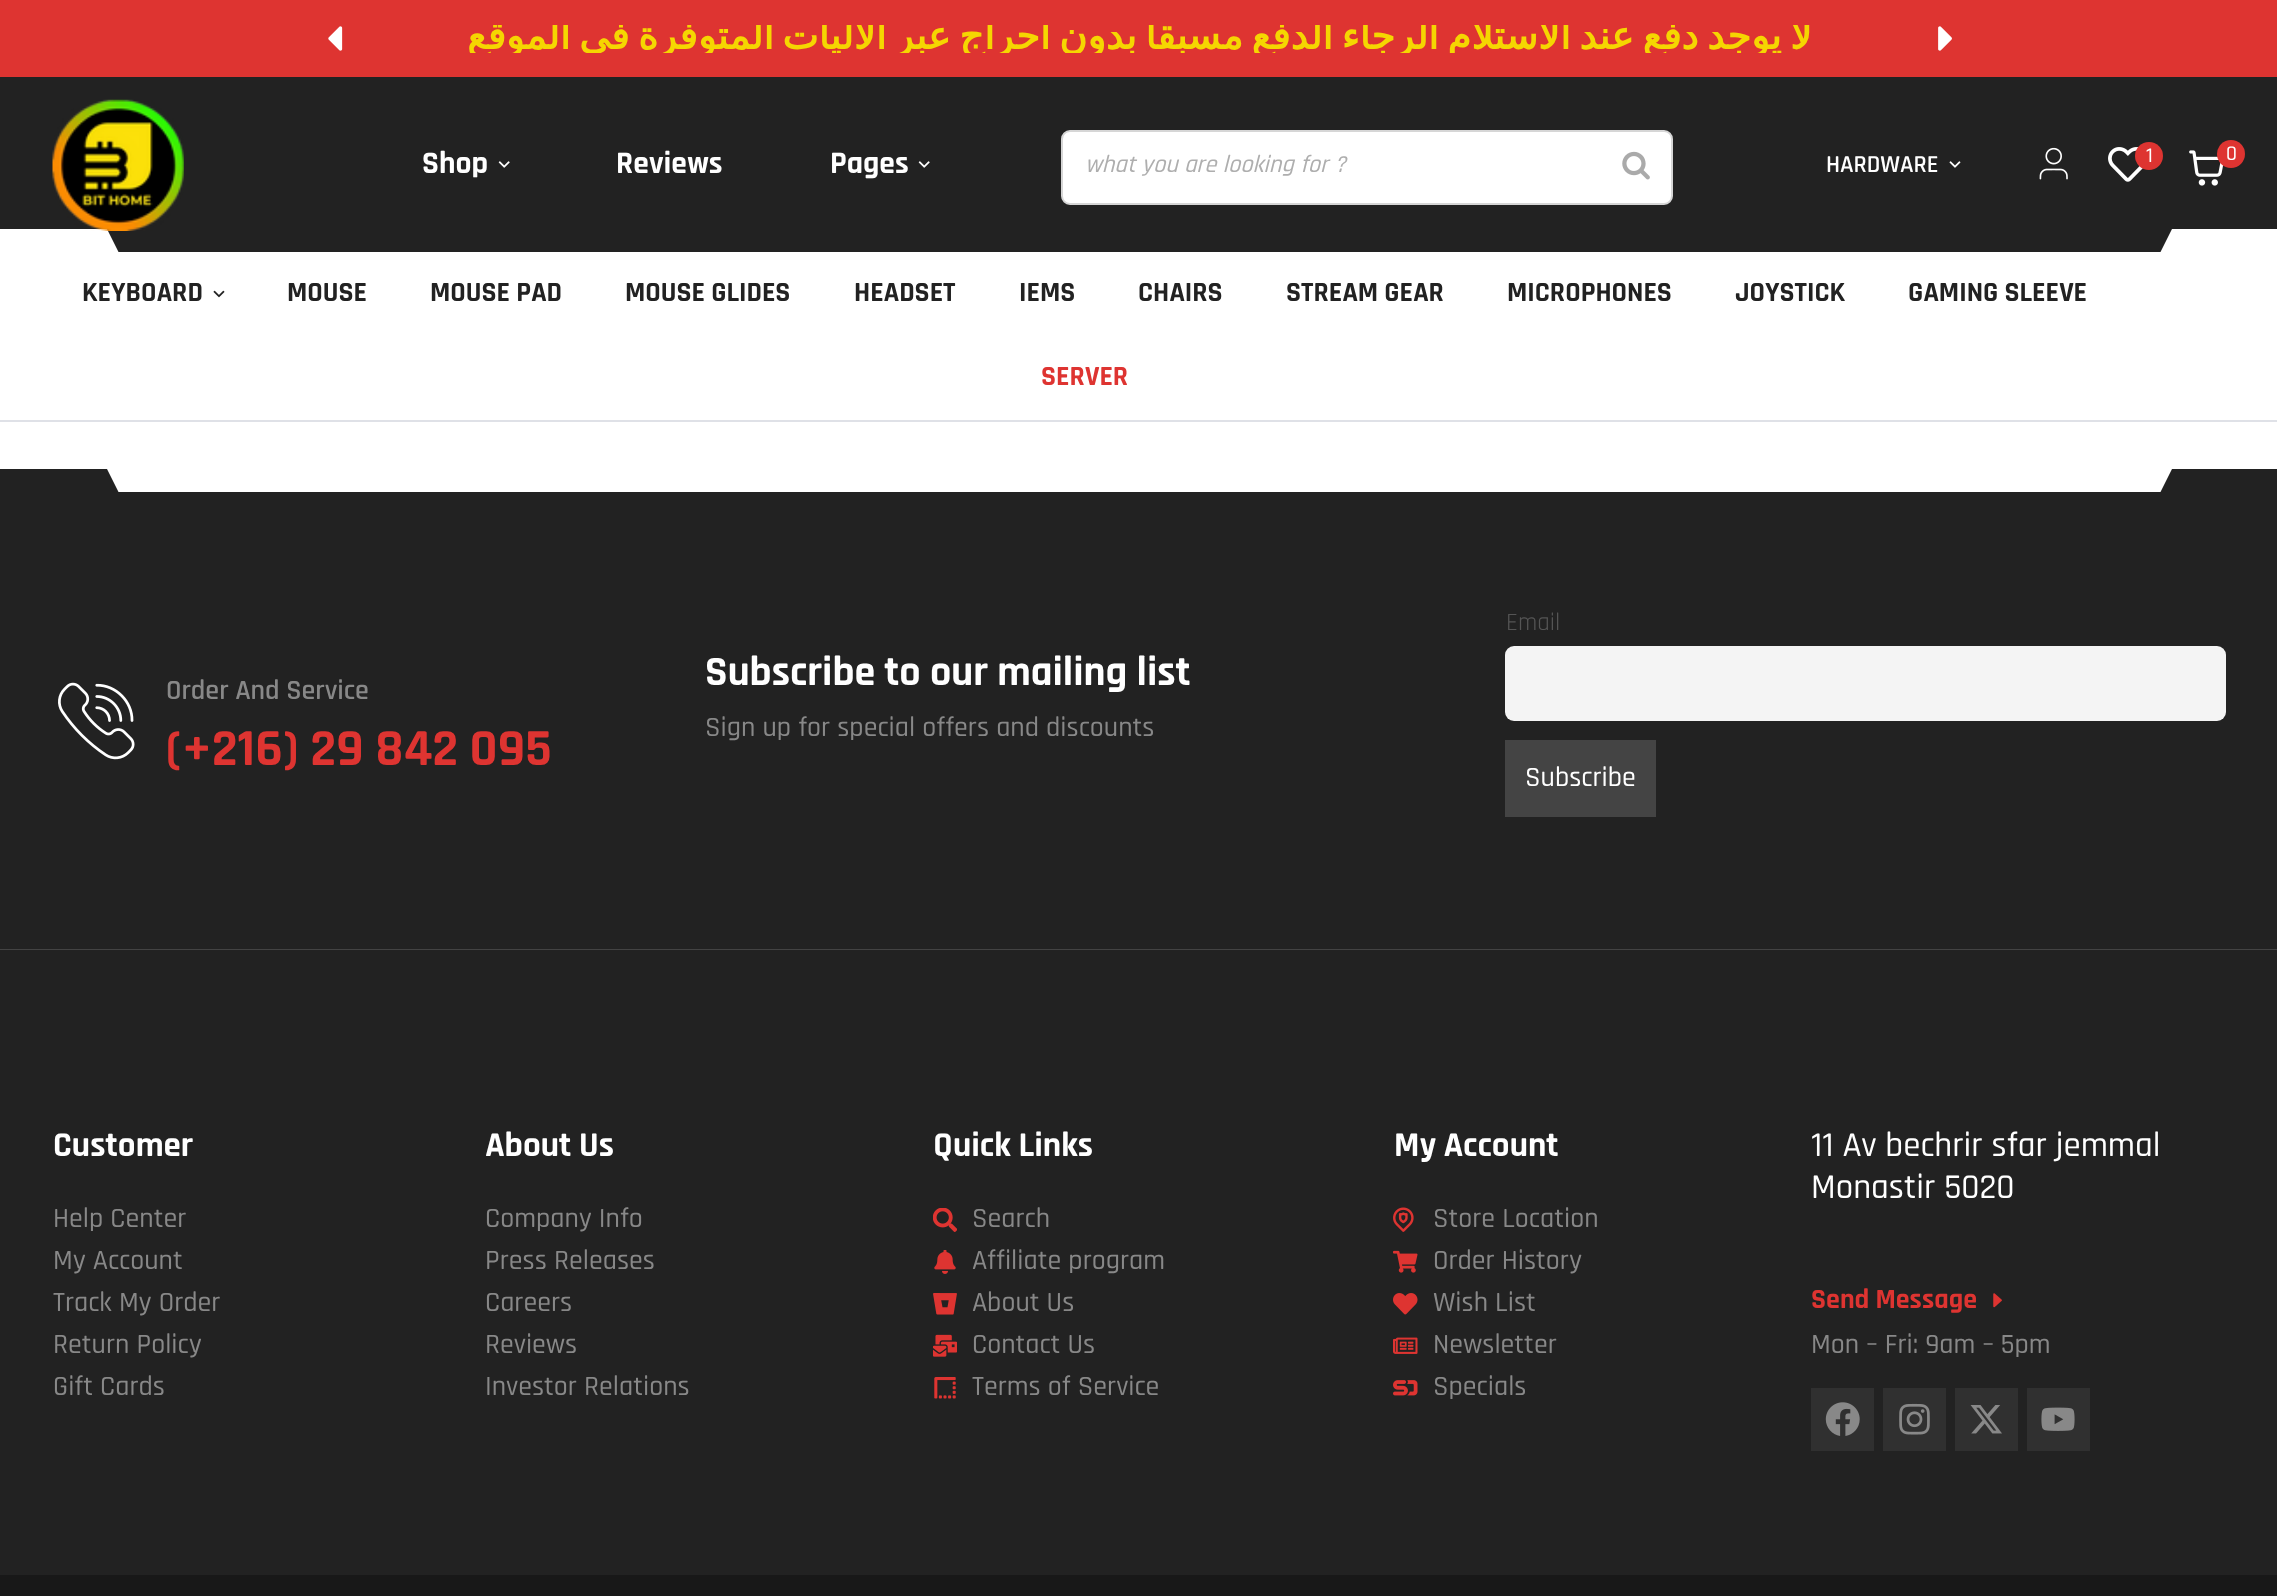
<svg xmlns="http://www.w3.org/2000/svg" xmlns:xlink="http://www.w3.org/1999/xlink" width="2277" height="1596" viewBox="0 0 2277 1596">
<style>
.cls-1{font:bold 38.5px DejaVu Sans;direction:rtl;fill:#f5d601}
.cls-2{font:bold 31.5px Rajdhani;fill:#ffffff}
.cls-3{font:italic 500 24.5px Rajdhani;fill:#aeaeae}
.cls-4{font:500 21px Rajdhani;fill:#ffffff}
.cls-5{font:600 24.5px Rajdhani;fill:#ffffff}
.cls-6{font:bold 28px Rajdhani;fill:#222222}
.cls-7{font:bold 28px Rajdhani;fill:#de3431}
.cls-8{font:600 28px Rajdhani;fill:#888888}
.cls-9{font:bold 52.5px Rajdhani;fill:#de3431}
.cls-10{font:bold 42px Rajdhani;fill:#ffffff}
.cls-11{font:500 28px Rajdhani;fill:#888888}
.cls-12{font:25px Rajdhani;fill:#555555}
.cls-13{font:500 28px Rajdhani;fill:#ffffff}
.cls-14{font:bold 35px Rajdhani;fill:#ffffff}
.cls-15{font:500 35px Rajdhani;fill:#ffffff}
</style>
<defs>
<clipPath id="clip1"><rect x="313" y="25" width="1654" height="28"/></clipPath>
</defs>
<rect width="100%" height="100%" fill="#ffffff"/>
<rect fill="#de3431" x="0" y="0" width="2277" height="77"/>
<image xlink:href="image0.png" x="328" y="26" width="15" height="25"/>
<image xlink:href="image1.png" x="1938" y="26" width="14" height="25"/>
<rect fill="#222222" x="0" y="77" width="2277" height="175"/>
<path fill="#ffffff" d="M107 229H0V253H119Z"/>
<image xlink:href="image2.png" x="52" y="99" width="132" height="132"/>
<image xlink:href="image3.png" x="498" y="161" width="12" height="7"/>
<image xlink:href="image3.png" x="918" y="161" width="12" height="7"/>
<rect fill="#ffffff" stroke="#d6d6d6" stroke-width="2" x="1062" y="131" width="610" height="73" rx="8"/>
<image xlink:href="image4.png" x="1622" y="151" width="28" height="29"/>
<image xlink:href="image5.png" x="2039" y="147" width="29" height="33"/>
<image xlink:href="image6.png" x="2108" y="147" width="35" height="35"/>
<circle fill="#de3431" cx="2149" cy="156" r="14"/>
<image xlink:href="image7.png" x="2189" y="150" width="35" height="36"/>
<circle fill="#de3431" cx="2231" cy="154" r="14"/>
<image xlink:href="image8.png" x="1949" y="161" width="12" height="7"/>
<path fill="#ffffff" d="M2172 229H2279V253H2160Z"/>
<rect fill="#dfe1e7" x="0" y="420" width="2277" height="2"/>
<image xlink:href="image9.png" x="213" y="290" width="12" height="8"/>
<path fill="#222222" d="M2172 469H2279V493H2160Z"/>
<path fill="#222222" d="M107 469H0V493H119Z"/>
<rect fill="#222222" x="0" y="492" width="2277" height="457"/>
<rect fill="#434343" x="0" y="949" width="2277" height="1"/>
<image xlink:href="image10.png" x="58" y="682" width="77" height="78"/>
<rect fill="#f4f4f4" x="1505" y="646" width="721" height="75" rx="9"/>
<rect fill="#444444" x="1505" y="740" width="151" height="77"/>
<rect fill="#222222" x="0" y="950" width="2277" height="625"/>
<image xlink:href="image11.png" x="933" y="1208" width="24" height="24"/>
<image xlink:href="image12.png" x="934" y="1250" width="22" height="24"/>
<image xlink:href="image13.png" x="933" y="1293" width="24" height="22"/>
<image xlink:href="image14.png" x="933" y="1334" width="24" height="23"/>
<image xlink:href="image15.png" x="934" y="1377" width="22" height="22"/>
<image xlink:href="image16.png" x="1393" y="1207" width="21" height="25"/>
<image xlink:href="image17.png" x="1393" y="1250" width="25" height="23"/>
<image xlink:href="image18.png" x="1393" y="1293" width="25" height="22"/>
<image xlink:href="image19.png" x="1393" y="1337" width="25" height="17"/>
<image xlink:href="image20.png" x="1393" y="1380" width="25" height="16"/>
<image xlink:href="image21.png" x="1993" y="1293" width="9" height="15"/>
<rect fill="#303030" x="1811" y="1388" width="63" height="63"/>
<image xlink:href="image22.png" x="1825" y="1402" width="35" height="34"/>
<rect fill="#303030" x="1883" y="1388" width="63" height="63"/>
<image xlink:href="image23.png" x="1899" y="1403" width="31" height="32"/>
<rect fill="#303030" x="1955" y="1388" width="63" height="63"/>
<image xlink:href="image24.png" x="1970" y="1405" width="32" height="29"/>
<rect fill="#303030" x="2027" y="1388" width="63" height="63"/>
<image xlink:href="image25.png" x="2041" y="1407" width="34" height="24"/>
<path fill="#181818" d="M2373 1575H1139V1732H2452Z"/>
<path fill="#181818" d="M-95 1575H1139V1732H-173Z"/>
<g clip-path="url(#clip1)">
<text class="cls-1" x="1812" y="49" word-spacing="-3.75">لا يوجد دفع عند الاستلام الرجاء الدفع مسبقا بدون احراج عبر الاليات المتوفرة في الموقع</text>
</g>
<text class="cls-2" x="422" y="173">Shop</text>
<text class="cls-2" x="616" y="173">Reviews</text>
<text class="cls-2" x="830" y="173">Pages</text>
<text class="cls-3" x="1085" y="172">what you are looking for ?</text>
<text class="cls-4" x="2146" y="162">1</text>
<text class="cls-4" x="2226" y="160">0</text>
<text class="cls-5" x="1826" y="172">HARDWARE</text>
<text class="cls-6" x="82" y="301">KEYBOARD</text>
<text class="cls-6" x="287" y="301">MOUSE</text>
<text class="cls-6" x="430" y="301">MOUSE PAD</text>
<text class="cls-6" x="625" y="301">MOUSE GLIDES</text>
<text class="cls-6" x="854" y="301">HEADSET</text>
<text class="cls-6" x="1019" y="301">IEMS</text>
<text class="cls-6" x="1138" y="301">CHAIRS</text>
<text class="cls-6" x="1286" y="301">STREAM GEAR</text>
<text class="cls-6" x="1507" y="301">MICROPHONES</text>
<text class="cls-6" x="1735" y="301">JOYSTICK</text>
<text class="cls-6" x="1908" y="301">GAMING SLEEVE</text>
<text class="cls-7" x="1041" y="385">SERVER</text>
<text class="cls-8" x="166" y="699">Order And Service</text>
<text class="cls-9" x="166" y="765">(+216) 29 842 095</text>
<text class="cls-10" x="705" y="685">Subscribe to our mailing list</text>
<text class="cls-11" x="705" y="736">Sign up for special offers and discounts</text>
<text class="cls-12" x="1506" y="630">Email</text>
<text class="cls-13" x="1525" y="786">Subscribe</text>
<text class="cls-14" x="53" y="1156">Customer</text>
<text class="cls-11"><tspan x="53" y="1227">Help Center</tspan><tspan x="53" y="1269">My Account</tspan><tspan x="53" y="1311">Track My Order</tspan><tspan x="53" y="1353">Return Policy</tspan><tspan x="53" y="1395">Gift Cards</tspan></text>
<text class="cls-14" x="485" y="1156">About Us</text>
<text class="cls-11"><tspan x="485" y="1227">Company Info</tspan><tspan x="485" y="1269">Press Releases</tspan><tspan x="485" y="1311">Careers</tspan><tspan x="485" y="1353">Reviews</tspan><tspan x="485" y="1395">Investor Relations</tspan></text>
<text class="cls-14" x="933" y="1156">Quick Links</text>
<text class="cls-11"><tspan x="972" y="1227">Search</tspan><tspan x="972" y="1269">Affiliate program</tspan><tspan x="972" y="1311">About Us</tspan><tspan x="972" y="1353">Contact Us</tspan><tspan x="972" y="1395">Terms of Service</tspan></text>
<text class="cls-14" x="1394" y="1156">My Account</text>
<text class="cls-11"><tspan x="1433" y="1227">Store Location</tspan><tspan x="1433" y="1269">Order History</tspan><tspan x="1433" y="1311">Wish List</tspan><tspan x="1433" y="1353">Newsletter</tspan><tspan x="1433" y="1395">Specials</tspan></text>
<text class="cls-15"><tspan x="1811" y="1156">11 Av bechrir sfar jemmal</tspan><tspan x="1811" y="1198">Monastir 5020</tspan></text>
<text class="cls-7" x="1811" y="1308">Send Message</text>
<text class="cls-11" x="1811" y="1353">Mon – Fri: 9am – 5pm</text>
</svg>
